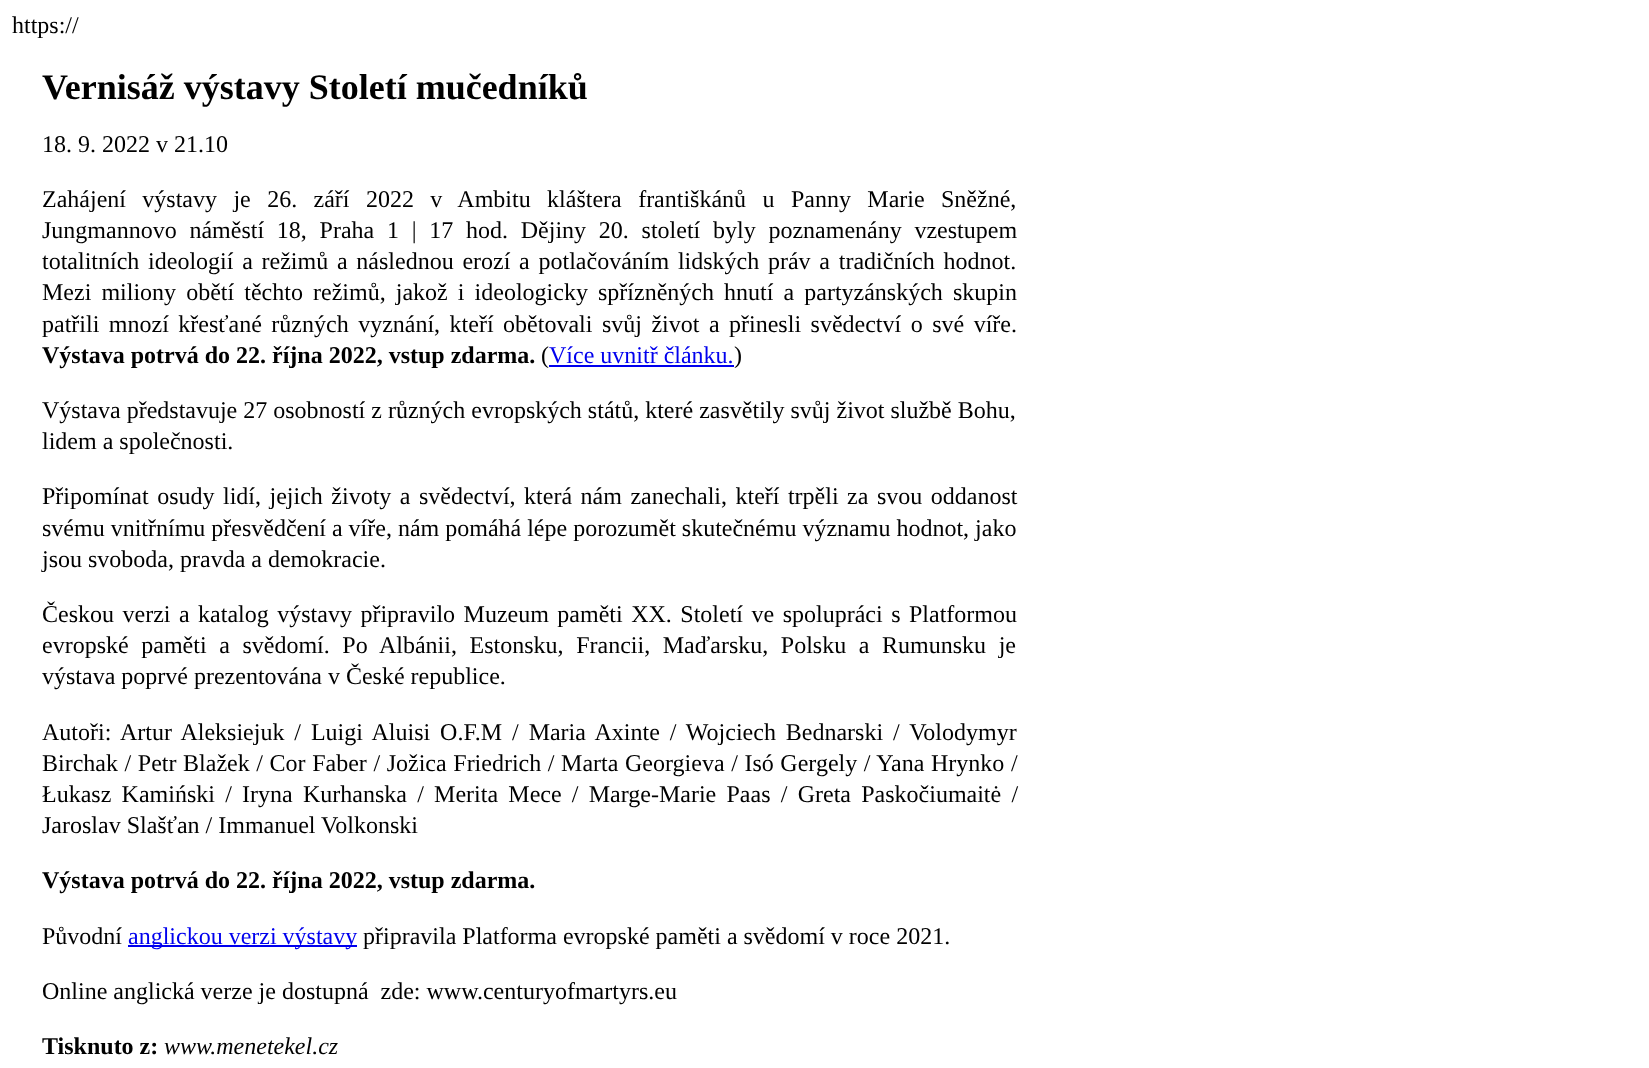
<svg xmlns="http://www.w3.org/2000/svg" xmlns:xlink="http://www.w3.org/1999/xlink" width="1649" height="1068" viewBox="0 0 1649 1068">
<style>
.cls-1{font:24px Liberation Serif;fill:#000000}
.cls-2{font:bold 36px Liberation Serif;fill:#000000}
.cls-3{font:bold 24px Liberation Serif;fill:#000000}
.cls-4{font:24px Liberation Serif;fill:#0000ee}
.cls-5{font:italic 24px Liberation Serif;fill:#000000}
</style>
<rect width="100%" height="100%" fill="#ffffff"/>
<rect fill="#0000ee" x="549" y="365" width="185" height="2"/>
<rect fill="#0000ee" x="128" y="945" width="229" height="2"/>
<text class="cls-1" x="12" y="33">https://</text>
<text class="cls-2" x="42" y="99">Vernisáž výstavy Století mučedníků</text>
<text class="cls-1" x="42" y="152">18. 9. 2022 v 21.10</text>
<text class="cls-1"><tspan x="42" y="207" word-spacing="10.4">Zahájení výstavy je 26. září 2022 v Ambitu kláštera františkánů u Panny Marie Sněžné,</tspan><tspan x="42" y="238" word-spacing="6.75">Jungmannovo náměstí 18, Praha 1 | 17 hod. Dějiny 20. století byly poznamenány vzestupem</tspan><tspan x="42" y="269" word-spacing="2.75">totalitních ideologií a režimů a následnou erozí a potlačováním lidských práv a tradičních hodnot.</tspan><tspan x="42" y="300" word-spacing="4.1">Mezi miliony obětí těchto režimů, jakož i ideologicky spřízněných hnutí a partyzánských skupin</tspan><tspan x="42" y="332" word-spacing="3.5">patřili mnozí křesťané různých vyznání, kteří obětovali svůj život a přinesli svědectví o své víře.</tspan></text>
<text class="cls-3" x="42" y="363">Výstava potrvá do 22. října 2022, vstup zdarma.</text>
<text class="cls-1" x="541" y="363">(</text>
<text class="cls-4" x="549" y="363">Více uvnitř článku.</text>
<text class="cls-1" x="734" y="363">)</text>
<text class="cls-1"><tspan x="42" y="418">Výstava představuje 27 osobností z různých evropských států, které zasvětily svůj život službě Bohu,</tspan><tspan x="42" y="449">lidem a společnosti.</tspan></text>
<text class="cls-1"><tspan x="42" y="504" word-spacing="2.5">Připomínat osudy lidí, jejich životy a svědectví, která nám zanechali, kteří trpěli za svou oddanost</tspan><tspan x="42" y="536">svému vnitřnímu přesvědčení a víře, nám pomáhá lépe porozumět skutečnému významu hodnot, jako</tspan><tspan x="42" y="567">jsou svoboda, pravda a demokracie.</tspan></text>
<text class="cls-1"><tspan x="42" y="622" word-spacing="2.5">Českou verzi a katalog výstavy připravilo Muzeum paměti XX. Století ve spolupráci s Platformou</tspan><tspan x="42" y="653" word-spacing="6.6">evropské paměti a svědomí. Po Albánii, Estonsku, Francii, Maďarsku, Polsku a Rumunsku je</tspan><tspan x="42" y="684">výstava poprvé prezentována v České republice.</tspan></text>
<text class="cls-1"><tspan x="42" y="740" word-spacing="3.9">Autoři: Artur Aleksiejuk / Luigi Aluisi O.F.M / Maria Axinte / Wojciech Bednarski / Volodymyr</tspan><tspan x="42" y="771" word-spacing="0.6">Birchak / Petr Blažek / Cor Faber / Jožica Friedrich / Marta Georgieva / Isó Gergely / Yana Hrynko /</tspan><tspan x="42" y="802" word-spacing="4.25">Łukasz Kamiński / Iryna Kurhanska / Merita Mece / Marge-Marie Paas / Greta Paskočiumaitė /</tspan><tspan x="42" y="833">Jaroslav Slašťan / Immanuel Volkonski</tspan></text>
<text class="cls-3" x="42" y="888">Výstava potrvá do 22. října 2022, vstup zdarma.</text>
<text class="cls-1" x="42" y="944">Původní</text>
<text class="cls-4" x="128" y="944">anglickou verzi výstavy</text>
<text class="cls-1" x="363" y="944">připravila Platforma evropské paměti a svědomí v roce 2021.</text>
<text class="cls-1" xml:space="preserve" x="42" y="999">Online anglická verze je dostupná  zde: www.centuryofmartyrs.eu</text>
<text class="cls-3" x="42" y="1054">Tisknuto z:</text>
<text class="cls-5" x="164" y="1054">www.menetekel.cz</text>
</svg>
